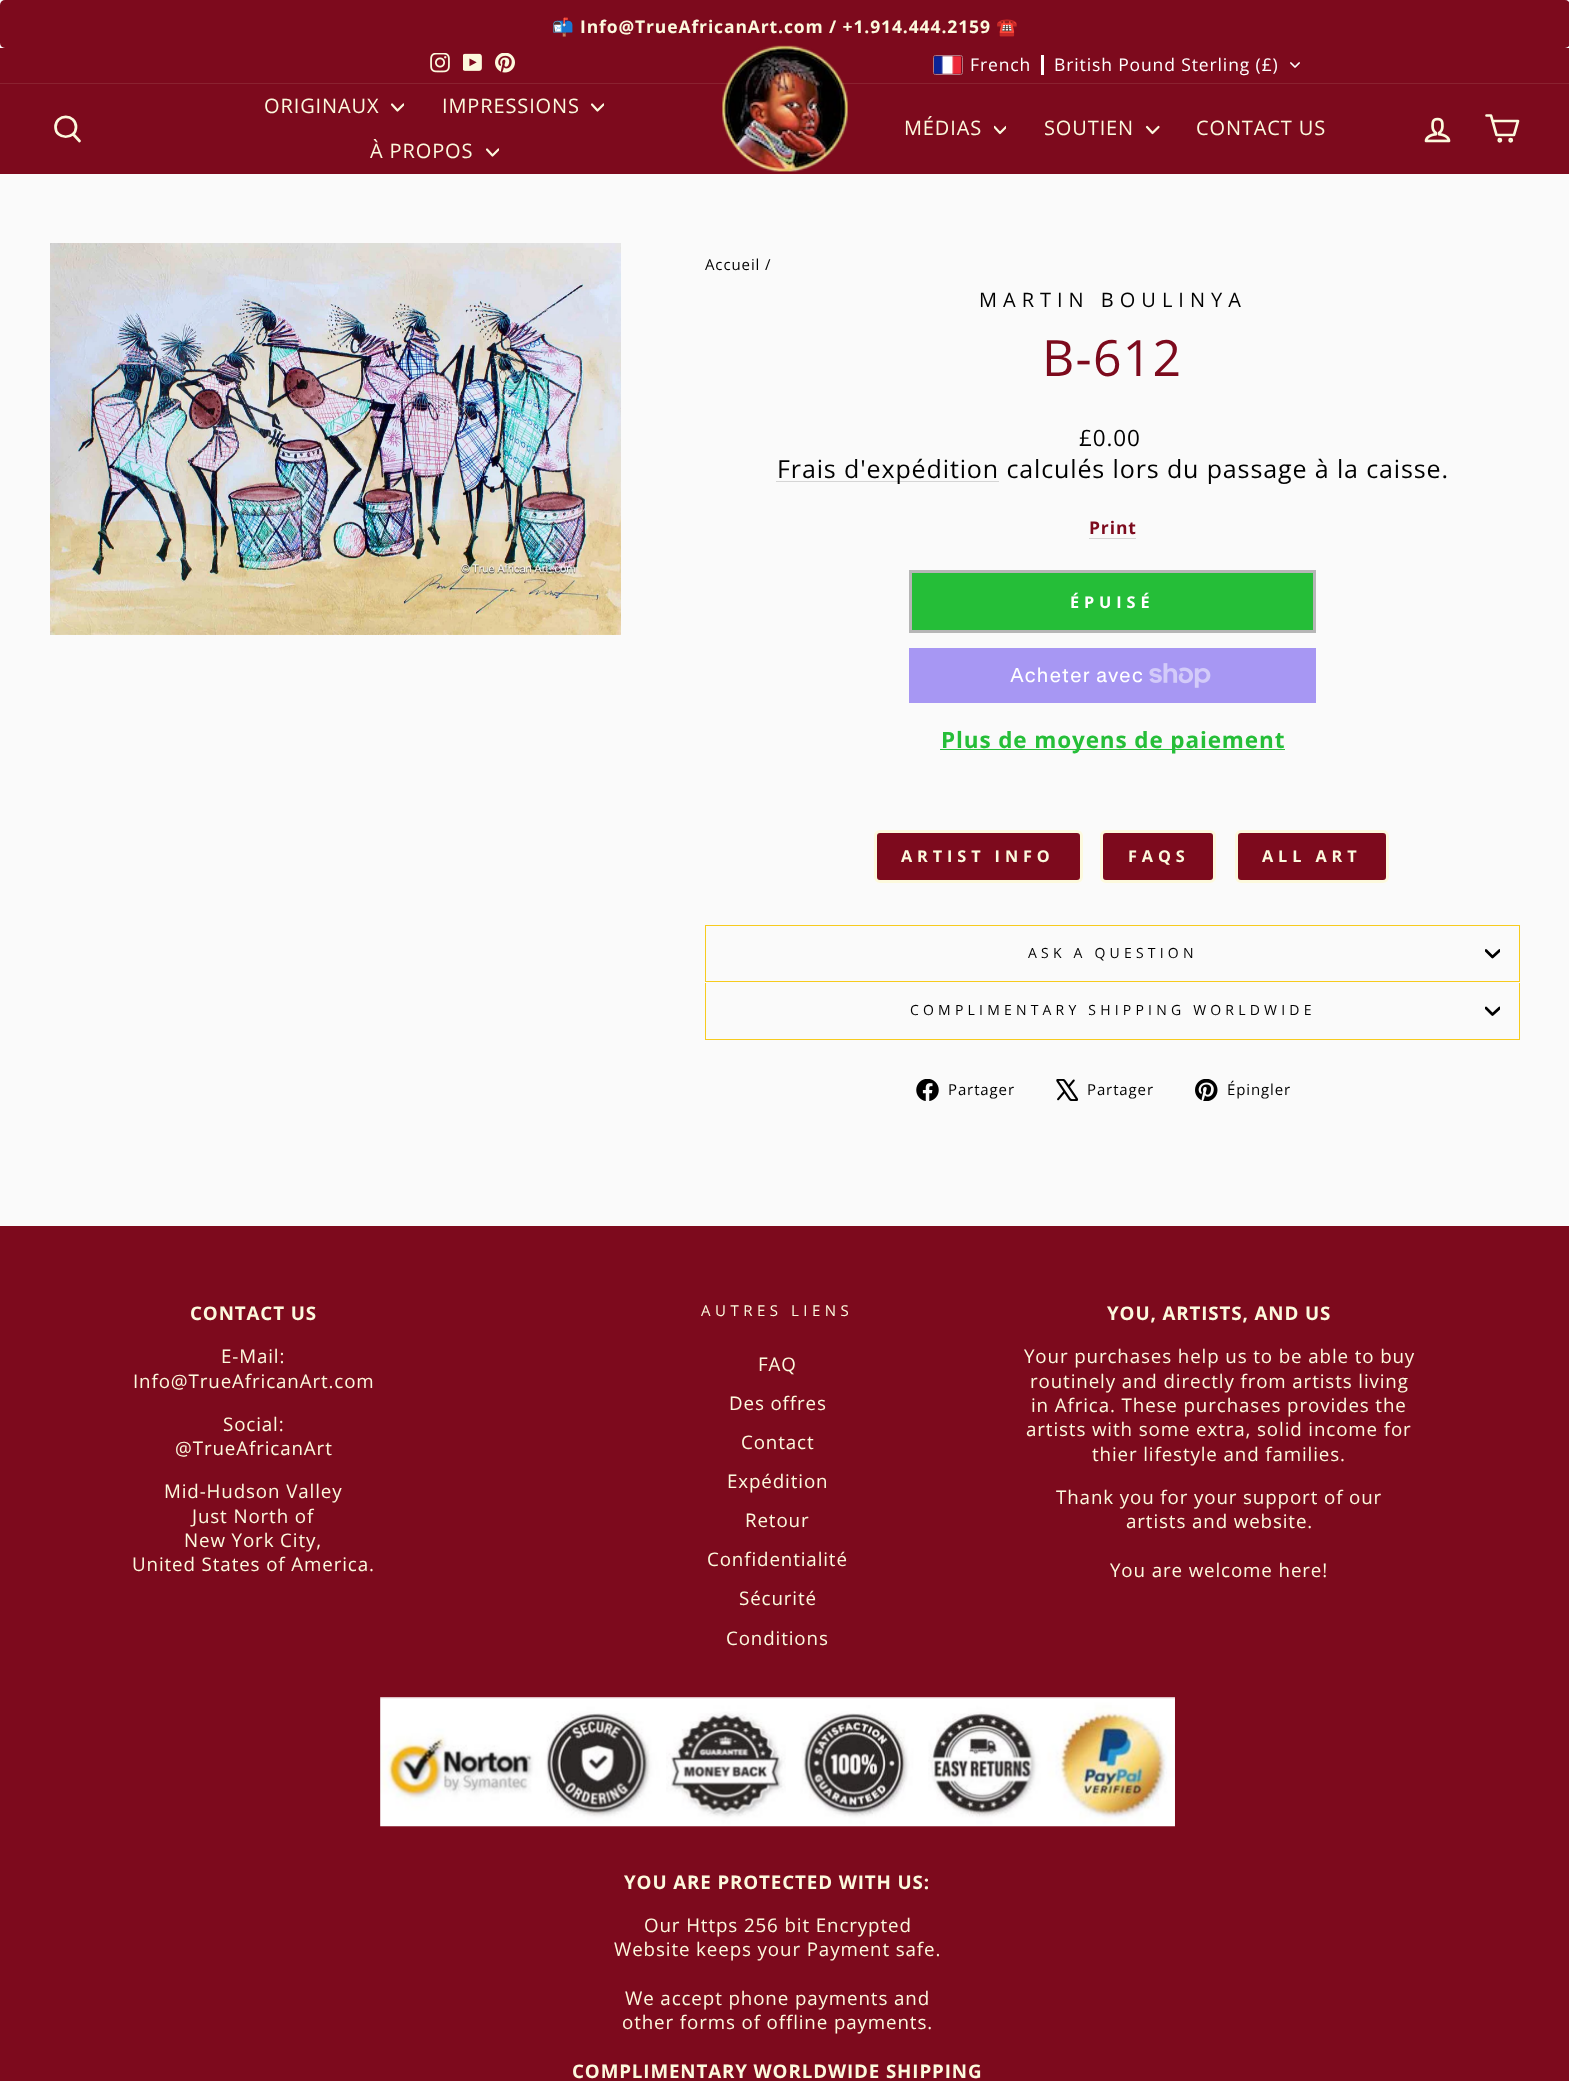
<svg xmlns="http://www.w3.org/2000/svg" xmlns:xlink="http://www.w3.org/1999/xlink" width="1569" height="2081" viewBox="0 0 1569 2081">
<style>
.cls-1{font:17.5px Noto Color Emoji;letter-spacing:0.88px;fill:#fcf9dd}
.cls-2{font:bold 17.5px Open Sans;letter-spacing:0.88px;fill:#fcf9dd}
.cls-3{font:17.5px Open Sans;letter-spacing:0.88px;fill:#ffffff}
.cls-4{font:20px Open Sans;letter-spacing:0.88px;fill:#fcf9dd}
.cls-5{font:15px Open Sans;letter-spacing:0.88px;fill:#000000}
.cls-6{font:20px Open Sans;letter-spacing:6px;fill:#000000}
.cls-7{font:50px Open Sans;letter-spacing:1.25px;fill:#7d0a1d}
.cls-8{font:22.5px Open Sans;letter-spacing:0.88px;fill:#000000}
.cls-9{font:25px Open Sans;letter-spacing:0.88px;fill:#000000}
.cls-10{font:bold 17.5px Open Sans;letter-spacing:0.88px;fill:#7d0a1d}
.cls-11{font:bold 16.25px Open Sans;letter-spacing:4.9px;fill:#ffffff}
.cls-12{font:20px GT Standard;letter-spacing:0.88px;fill:#ffffff}
.cls-13{font:bold 22.5px Open Sans;letter-spacing:0.88px;fill:#25be38}
.cls-14{font:bold 16.25px Open Sans;letter-spacing:4.9px;fill:#fcf9dd}
.cls-15{font:14px Open Sans;letter-spacing:4.2px;fill:#000000}
.cls-16{font:bold 18.75px Open Sans;letter-spacing:0.88px;fill:#fcf9dd}
.cls-17{font:18.75px Open Sans;letter-spacing:0.88px;fill:#fcf9dd}
.cls-18{font:15px Open Sans;letter-spacing:4.5px;fill:#fcf9dd}
</style>
<defs>
<clipPath id="clip1"><rect x="391" y="101" width="13" height="13"/></clipPath>
<clipPath id="clip2"><rect x="591" y="101" width="13" height="13"/></clipPath>
<clipPath id="clip3"><rect x="486" y="146" width="13" height="13"/></clipPath>
<clipPath id="clip4"><rect x="994" y="124" width="12" height="12"/></clipPath>
<clipPath id="clip5"><rect x="1485" y="946" width="15" height="15"/></clipPath>
<clipPath id="clip6"><rect x="1485" y="1004" width="15" height="15"/></clipPath>
</defs>
<rect width="100%" height="100%" fill="#fafafa"/>
<rect fill="#7d0a1d" x="0" y="0" width="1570" height="48" rx="5"/>
<rect fill="#7d0a1d" x="0" y="48" width="1569" height="35"/>
<image xlink:href="image0.png" x="430" y="53" width="20" height="20"/>
<image xlink:href="image1.png" x="463" y="53" width="19" height="18"/>
<image xlink:href="image2.png" x="495" y="53" width="20" height="20"/>
<rect fill="none" stroke="#af7781" x="933.5" y="55.5" width="29" height="19" rx="2"/>
<image xlink:href="image3.png" x="934" y="56" width="27" height="18"/>
<rect fill="#ffffff" x="1041" y="55" width="3" height="20"/>
<image xlink:href="image4.png" x="1290" y="62" width="10" height="6"/>
<rect fill="#7d0a1d" x="0" y="84" width="1569" height="90"/>
<rect fill="#8a2230" x="0" y="83" width="1569" height="1"/>
<path fill="none" stroke="#fcf9dd" stroke-width="2.7" stroke-linecap="round" stroke-linejoin="round" d="M76 127C76 140 55.5 140 55.5 127C55.5 113.5 76 113.5 76 127ZM79.5 141L73 134"/>
<g clip-path="url(#clip1)">
<path fill="none" stroke="#fcf9dd" stroke-width="2.2" stroke-linecap="round" stroke-linejoin="round" d="M392 104.5L397.5 110.5L403.5 104.5"/>
</g>
<g clip-path="url(#clip2)">
<path fill="none" stroke="#fcf9dd" stroke-width="2.2" stroke-linecap="round" stroke-linejoin="round" d="M592 104.5L597.5 110.5L603.5 104.5"/>
</g>
<g clip-path="url(#clip3)">
<path fill="none" stroke="#fcf9dd" stroke-width="2.2" stroke-linecap="round" stroke-linejoin="round" d="M487 149.5L492.5 155.5L498.5 149.5"/>
</g>
<image xlink:href="image5.png" x="722" y="45" width="126" height="127"/>
<g clip-path="url(#clip4)">
<path fill="none" stroke="#fcf9dd" stroke-width="2.2" stroke-linecap="round" stroke-linejoin="round" d="M994.5 127L1000 133L1006 127"/>
</g>
<path fill="none" stroke="#fcf9dd" stroke-width="2.2" stroke-linecap="round" stroke-linejoin="round" d="M1147 127L1152.5 133L1158.5 127"/>
<image xlink:href="image6.png" x="1424" y="117" width="27" height="26"/>
<path fill="none" stroke="#fcf9dd" stroke-width="2.7" stroke-linecap="round" stroke-linejoin="round" d="M1492.5 121H1518L1514 135H1496.5L1491 115.5H1486.5"/>
<circle fill="none" stroke="#fcf9dd" stroke-width="2.7" cx="1499.8" cy="140.2" r="1.1"/>
<circle fill="none" stroke="#fcf9dd" stroke-width="2.7" cx="1510.7" cy="140.2" r="1.1"/>
<image xlink:href="image7.png" x="50" y="243" width="571" height="392"/>
<rect fill="#d5d5d5" x="776" y="481" width="223" height="1"/>
<rect fill="#d5d5d5" x="1089" y="538" width="47" height="1"/>
<rect fill="#25be38" stroke="#b6b6b6" stroke-width="3" x="910.5" y="571.5" width="404" height="60"/>
<rect fill="#a797f3" x="909" y="648" width="407" height="55"/>
<image xlink:href="image8.png" x="1149" y="663" width="62" height="25"/>
<rect fill="#25be38" x="940" y="749" width="345" height="1"/>
<rect fill="#7d0a1d" stroke="#fcf9dd" stroke-width="3" x="875.5" y="831.5" width="206" height="50" rx="4.5"/>
<rect fill="#7d0a1d" stroke="#fcf9dd" stroke-width="3" x="1101.5" y="831.5" width="113" height="50" rx="4.5"/>
<rect fill="#7d0a1d" stroke="#fcf9dd" stroke-width="3" x="1236.5" y="831.5" width="151" height="50" rx="4.5"/>
<rect fill="#f7cb1e" x="705" y="981" width="815" height="1"/>
<rect fill="#f7cb1e" x="705" y="925" width="815" height="1"/>
<rect fill="#f7cb1e" x="1519" y="925" width="1" height="56"/>
<rect fill="#f7cb1e" x="705" y="925" width="1" height="56"/>
<g clip-path="url(#clip5)">
<path fill="none" stroke="#000000" stroke-width="2.7" stroke-linecap="round" stroke-linejoin="round" d="M1486 950.5L1492.5 957L1499.5 950.5"/>
</g>
<rect fill="#f7cb1e" x="705" y="1039" width="815" height="1"/>
<rect fill="#f7cb1e" x="1519" y="983" width="1" height="56"/>
<rect fill="#f7cb1e" x="705" y="983" width="1" height="56"/>
<g clip-path="url(#clip6)">
<path fill="none" stroke="#000000" stroke-width="2.7" stroke-linecap="round" stroke-linejoin="round" d="M1486 1008L1492.5 1014.5L1499.5 1008"/>
</g>
<image xlink:href="image9.png" x="916" y="1079" width="23" height="22"/>
<image xlink:href="image10.png" x="1056" y="1079" width="23" height="22"/>
<image xlink:href="image11.png" x="1195" y="1079" width="23" height="22"/>
<rect fill="#7d0a1d" x="0" y="1226" width="1569" height="855"/>
<image xlink:href="image12.png" x="380" y="1697" width="795" height="130"/>
<text class="cls-1" x="552" y="33">📬</text>
<text class="cls-2" x="580" y="33">Info@TrueAfricanArt.com / +1.914.444.2159</text>
<text class="cls-1" x="996" y="33">☎️</text>
<text class="cls-3" x="970" y="71">French</text>
<text class="cls-3" x="1054" y="71">British Pound Sterling (£)</text>
<text class="cls-4" x="264" y="113">ORIGINAUX</text>
<text class="cls-4" x="442" y="113">IMPRESSIONS</text>
<text class="cls-4" x="370" y="158">À PROPOS</text>
<text class="cls-4" x="904" y="135">MÉDIAS</text>
<text class="cls-4" x="1044" y="135">SOUTIEN</text>
<text class="cls-4" x="1196" y="135">CONTACT US</text>
<text class="cls-5" x="705" y="270">Accueil /</text>
<text class="cls-6" x="979" y="307">MARTIN BOULINYA</text>
<text class="cls-7" x="1042" y="376">B-612</text>
<text class="cls-8" x="1079" y="446">£0.00</text>
<text class="cls-9" x="777" y="478">Frais d'expédition calculés lors du passage à la caisse.</text>
<text class="cls-10" x="1089" y="534">Print</text>
<text class="cls-11" x="1070" y="608">ÉPUISÉ</text>
<text class="cls-12" x="1010" y="682">Acheter avec</text>
<text class="cls-13" x="941" y="748">Plus de moyens de paiement</text>
<text class="cls-14" x="901" y="862">ARTIST INFO</text>
<text class="cls-14" x="1128" y="862">FAQS</text>
<text class="cls-14" x="1262" y="862">ALL ART</text>
<text class="cls-15" x="1028" y="958">ASK A QUESTION</text>
<text class="cls-15" x="910" y="1015">COMPLIMENTARY SHIPPING WORLDWIDE</text>
<text class="cls-5" x="948" y="1095">Partager</text>
<text class="cls-5" x="1087" y="1095">Partager</text>
<text class="cls-5" x="1227" y="1095">Épingler</text>
<text class="cls-16" x="190" y="1320">CONTACT US</text>
<text class="cls-17" x="221" y="1363">E-Mail:</text>
<text class="cls-17" x="133" y="1388">Info@TrueAfricanArt.com</text>
<text class="cls-17" x="223" y="1431">Social:</text>
<text class="cls-17" x="175" y="1455">@TrueAfricanArt</text>
<text class="cls-17" x="164" y="1498">Mid-Hudson Valley</text>
<text class="cls-17" x="192" y="1523">Just North of</text>
<text class="cls-17" x="184" y="1547">New York City,</text>
<text class="cls-17" x="132" y="1571">United States of America.</text>
<text class="cls-18" x="701" y="1316">AUTRES LIENS</text>
<text class="cls-17" x="758" y="1371">FAQ</text>
<text class="cls-17" x="729" y="1410">Des offres</text>
<text class="cls-17" x="741" y="1449">Contact</text>
<text class="cls-17" x="727" y="1488">Expédition</text>
<text class="cls-17" x="745" y="1527">Retour</text>
<text class="cls-17" x="707" y="1566">Confidentialité</text>
<text class="cls-17" x="739" y="1605">Sécurité</text>
<text class="cls-17" x="726" y="1645">Conditions</text>
<text class="cls-16" x="1107" y="1320">YOU, ARTISTS, AND US</text>
<text class="cls-17" x="1024" y="1363">Your purchases help us to be able to buy</text>
<text class="cls-17" x="1030" y="1388">routinely and directly from artists living</text>
<text class="cls-17" x="1031" y="1412">in Africa. These purchases provides the</text>
<text class="cls-17" x="1026" y="1436">artists with some extra, solid income for</text>
<text class="cls-17" x="1092" y="1461">thier lifestyle and families.</text>
<text class="cls-17" x="1056" y="1504">Thank you for your support of our</text>
<text class="cls-17" x="1126" y="1528">artists and website.</text>
<text class="cls-17" x="1110" y="1577">You are welcome here!</text>
<text class="cls-16" x="624" y="1889">YOU ARE PROTECTED WITH US:</text>
<text class="cls-17" x="644" y="1932">Our Https 256 bit Encrypted</text>
<text class="cls-17" x="614" y="1956">Website keeps your Payment safe.</text>
<text class="cls-17" x="625" y="2005">We accept phone payments and</text>
<text class="cls-17" x="622" y="2029">other forms of offline payments.</text>
<text class="cls-16" x="572" y="2078">COMPLIMENTARY WORLDWIDE SHIPPING</text>
</svg>
